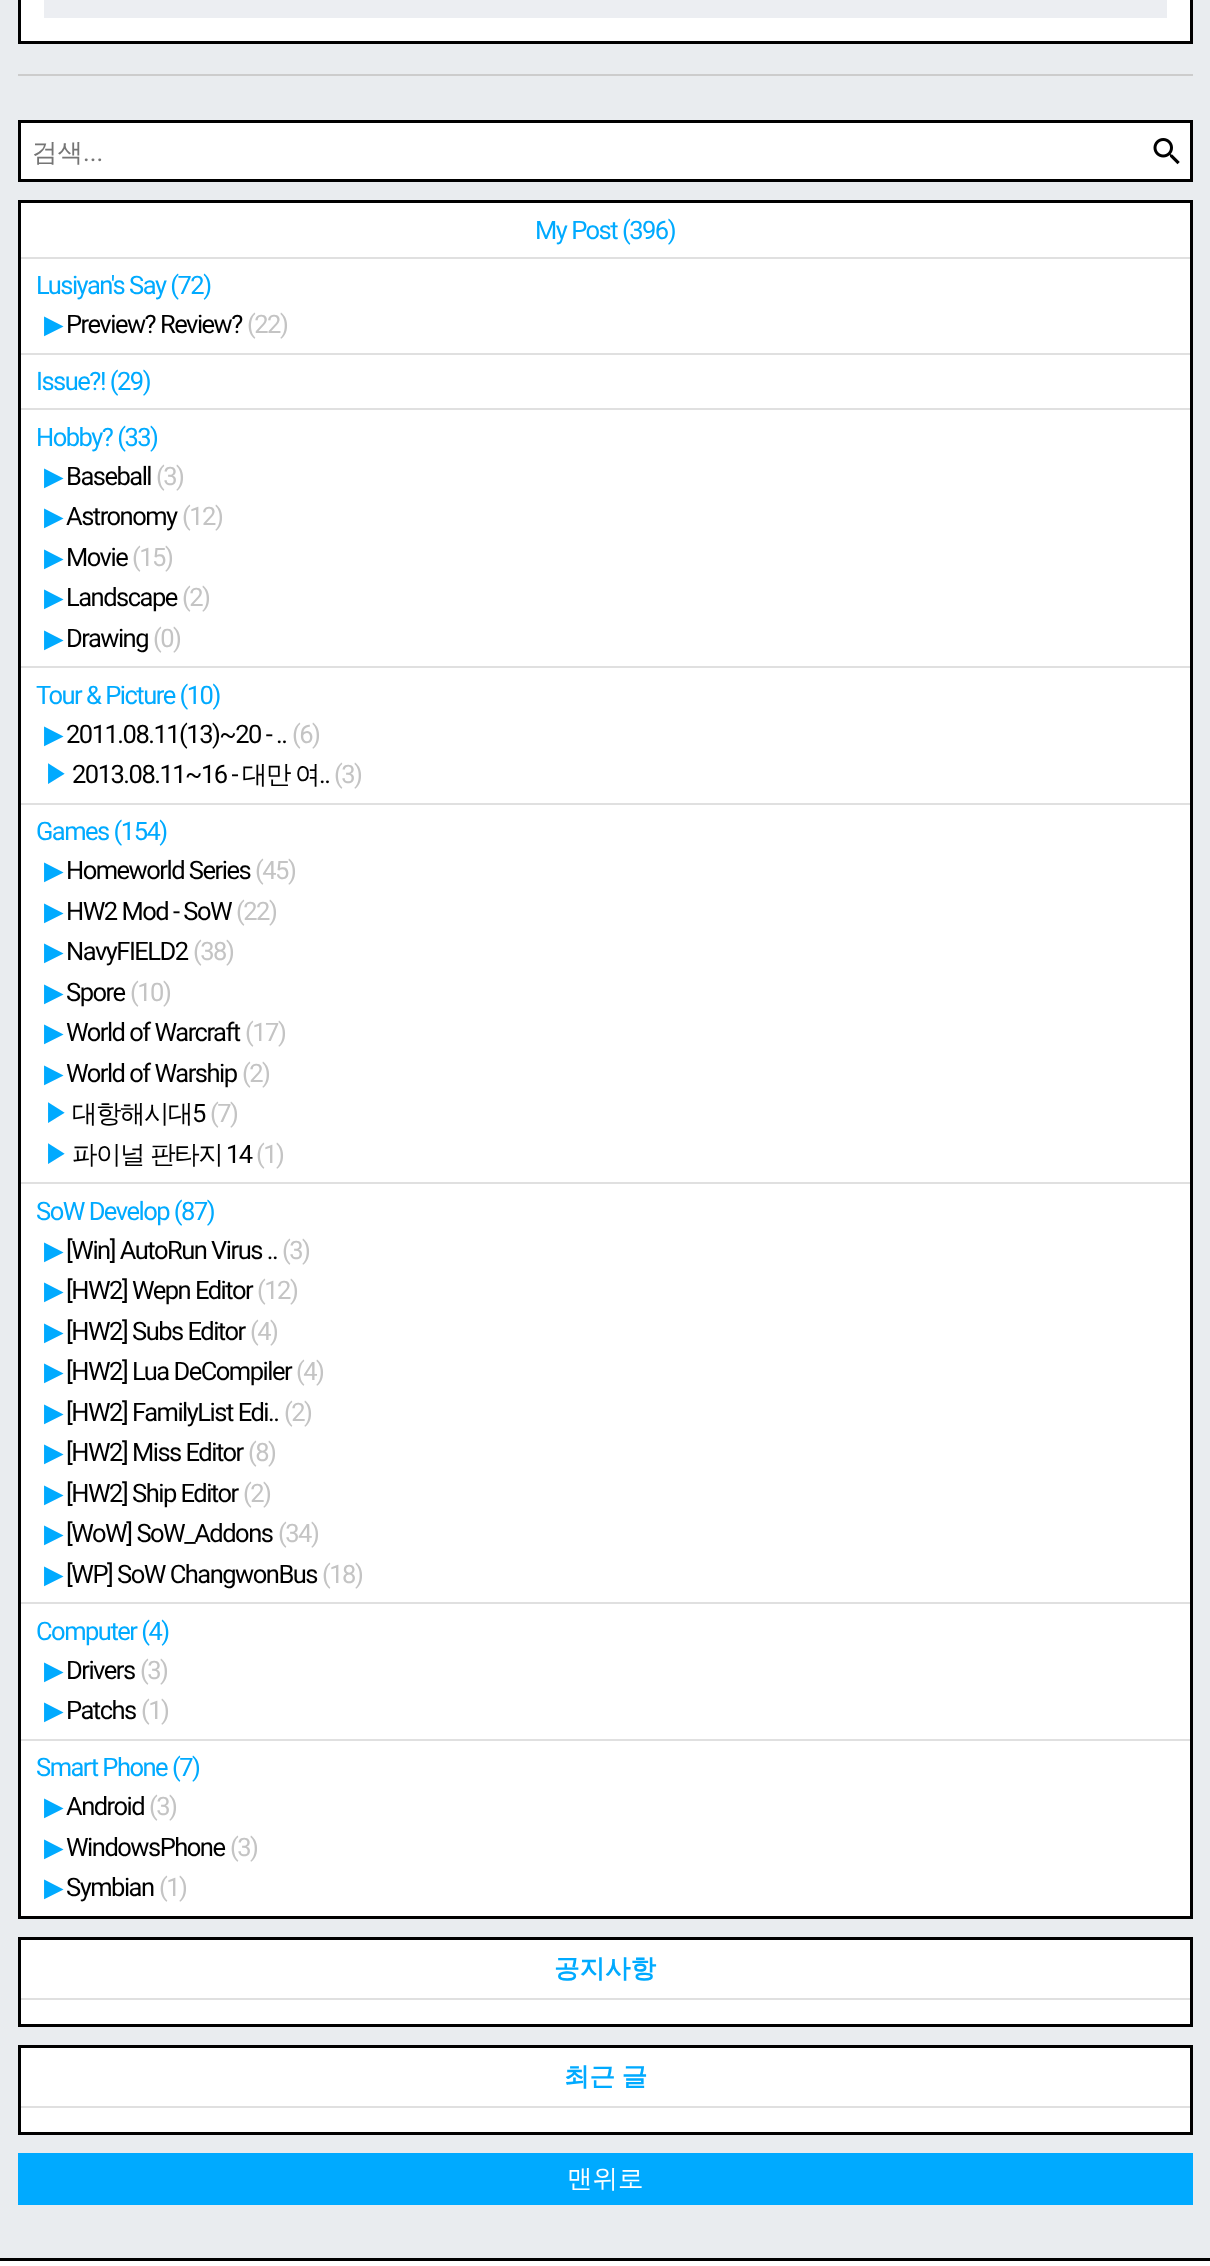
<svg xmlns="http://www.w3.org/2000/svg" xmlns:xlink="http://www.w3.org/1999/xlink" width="1210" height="2266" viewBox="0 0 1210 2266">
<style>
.cls-1{font:500 25.5px WenQuanYi Zen Hei;fill:#757575}
.cls-2{font:25.5px Roboto;fill:#757575}
.cls-3{font:25.5px Roboto;letter-spacing:-1.5px;fill:#00aaff}
.cls-4{font:25.5px DejaVu Sans;letter-spacing:-1.5px;fill:#00aaff}
.cls-5{font:25.5px Roboto;letter-spacing:-1.5px;fill:#000000}
.cls-6{font:25.5px Roboto;letter-spacing:-1.5px;fill:#c4c4c4}
.cls-7{font:500 25.5px WenQuanYi Zen Hei;letter-spacing:-1.5px;fill:#00aaff}
.cls-8{font:500 25.5px WenQuanYi Zen Hei;letter-spacing:-1.5px;fill:#000000}
.cls-9{font:bold 25.5px WenQuanYi Zen Hei;fill:#00aaff}
.cls-10{font:500 25.5px WenQuanYi Zen Hei;fill:#ffffff}
</style>
<rect width="100%" height="100%" fill="#e9ecef"/>
<rect fill="#ffffff" stroke="#000000" stroke-width="3" x="19.5" y="-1.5" width="1172" height="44"/>
<rect fill="#eceef2" x="44" y="0" width="1123" height="18"/>
<rect fill="#cccccc" x="18" y="74" width="1175" height="2"/>
<rect fill="#ffffff" stroke="#000000" stroke-width="3" x="19.5" y="121.5" width="1172" height="59"/>
<image xlink:href="image0.png" x="1153" y="138" width="27" height="27"/>
<rect fill="#ffffff" stroke="#000000" stroke-width="3" x="19.5" y="201.5" width="1172" height="1716"/>
<rect fill="#e0e0e0" x="21" y="257" width="1169" height="2"/>
<rect fill="#e0e0e0" x="21" y="353" width="1169" height="2"/>
<rect fill="#e0e0e0" x="21" y="408" width="1169" height="2"/>
<rect fill="#e0e0e0" x="21" y="666" width="1169" height="2"/>
<rect fill="#e0e0e0" x="21" y="803" width="1169" height="2"/>
<rect fill="#e0e0e0" x="21" y="1182" width="1169" height="2"/>
<rect fill="#e0e0e0" x="21" y="1602" width="1169" height="2"/>
<rect fill="#e0e0e0" x="21" y="1739" width="1169" height="2"/>
<rect fill="#ffffff" stroke="#000000" stroke-width="3" x="19.5" y="1938.5" width="1172" height="87"/>
<rect fill="#e0e0e0" x="21" y="1998" width="1169" height="2"/>
<rect fill="#ffffff" stroke="#000000" stroke-width="3" x="19.5" y="2046.5" width="1172" height="87"/>
<rect fill="#e0e0e0" x="21" y="2106" width="1169" height="2"/>
<rect fill="#00aaff" x="18" y="2153" width="1175" height="52"/>
<rect fill="#ffffff" x="0" y="2261" width="1210" height="5"/>
<rect fill="#000000" x="0" y="2258" width="1210" height="3"/>
<text class="cls-1" x="32" y="161">검색</text>
<text class="cls-2" x="83" y="161">...</text>
<text class="cls-3" x="535" y="239">My Post (396)</text>
<text class="cls-3" x="36" y="294">Lusiyan's Say (72)</text>
<text class="cls-4" x="44" y="333">▶</text>
<text class="cls-5" x="66" y="333">Preview? Review?</text>
<text class="cls-6" x="247" y="333">(22)</text>
<text class="cls-3" x="36" y="390">Issue?! (29)</text>
<text class="cls-3" x="36" y="446">Hobby? (33)</text>
<text class="cls-4" x="44" y="485">▶</text>
<text class="cls-5" x="66" y="485">Baseball</text>
<text class="cls-6" x="156" y="485">(3)</text>
<text class="cls-4" x="44" y="525">▶</text>
<text class="cls-5" x="66" y="525">Astronomy</text>
<text class="cls-6" x="182" y="525">(12)</text>
<text class="cls-4" x="44" y="566">▶</text>
<text class="cls-5" x="66" y="566">Movie</text>
<text class="cls-6" x="132" y="566">(15)</text>
<text class="cls-4" x="44" y="606">▶</text>
<text class="cls-5" x="66" y="606">Landscape</text>
<text class="cls-6" x="182" y="606">(2)</text>
<text class="cls-4" x="44" y="647">▶</text>
<text class="cls-5" x="66" y="647">Drawing</text>
<text class="cls-6" x="153" y="647">(0)</text>
<text class="cls-3" x="36" y="704">Tour &amp; Picture (10)</text>
<text class="cls-4" x="44" y="743">▶</text>
<text class="cls-5" x="66" y="743">2011.08.11(13)~20 - ..</text>
<text class="cls-6" x="292" y="743">(6)</text>
<text class="cls-7" x="44" y="783">▶</text>
<text class="cls-5" x="72" y="783">2013.08.11~16 -</text>
<text class="cls-8" x="242" y="783">대만</text>
<text class="cls-8" x="295" y="783">여</text>
<text class="cls-5" x="319" y="783">..</text>
<text class="cls-6" x="334" y="783">(3)</text>
<text class="cls-3" x="36" y="840">Games (154)</text>
<text class="cls-4" x="44" y="879">▶</text>
<text class="cls-5" x="66" y="879">Homeworld Series</text>
<text class="cls-6" x="255" y="879">(45)</text>
<text class="cls-4" x="44" y="920">▶</text>
<text class="cls-5" x="66" y="920">HW2 Mod - SoW</text>
<text class="cls-6" x="236" y="920">(22)</text>
<text class="cls-4" x="44" y="960">▶</text>
<text class="cls-5" x="66" y="960">NavyFIELD2</text>
<text class="cls-6" x="193" y="960">(38)</text>
<text class="cls-4" x="44" y="1001">▶</text>
<text class="cls-5" x="66" y="1001">Spore</text>
<text class="cls-6" x="130" y="1001">(10)</text>
<text class="cls-4" x="44" y="1041">▶</text>
<text class="cls-5" x="66" y="1041">World of Warcraft</text>
<text class="cls-6" x="245" y="1041">(17)</text>
<text class="cls-4" x="44" y="1082">▶</text>
<text class="cls-5" x="66" y="1082">World of Warship</text>
<text class="cls-6" x="242" y="1082">(2)</text>
<text class="cls-7" x="44" y="1122">▶</text>
<text class="cls-8" x="72" y="1122">대항해시대</text>
<text class="cls-5" x="192" y="1122">5</text>
<text class="cls-6" x="210" y="1122">(7)</text>
<text class="cls-7" x="44" y="1163">▶</text>
<text class="cls-8" x="72" y="1163">파이널 판타지</text>
<text class="cls-5" x="226" y="1163">14</text>
<text class="cls-6" x="256" y="1163">(1)</text>
<text class="cls-3" x="36" y="1220">SoW Develop (87)</text>
<text class="cls-4" x="44" y="1259">▶</text>
<text class="cls-5" x="66" y="1259">[Win] AutoRun Virus ..</text>
<text class="cls-6" x="282" y="1259">(3)</text>
<text class="cls-4" x="44" y="1299">▶</text>
<text class="cls-5" x="66" y="1299">[HW2] Wepn Editor</text>
<text class="cls-6" x="257" y="1299">(12)</text>
<text class="cls-4" x="44" y="1340">▶</text>
<text class="cls-5" x="66" y="1340">[HW2] Subs Editor</text>
<text class="cls-6" x="250" y="1340">(4)</text>
<text class="cls-4" x="44" y="1380">▶</text>
<text class="cls-5" x="66" y="1380">[HW2] Lua DeCompiler</text>
<text class="cls-6" x="296" y="1380">(4)</text>
<text class="cls-4" x="44" y="1421">▶</text>
<text class="cls-5" x="66" y="1421">[HW2] FamilyList Edi..</text>
<text class="cls-6" x="284" y="1421">(2)</text>
<text class="cls-4" x="44" y="1461">▶</text>
<text class="cls-5" x="66" y="1461">[HW2] Miss Editor</text>
<text class="cls-6" x="248" y="1461">(8)</text>
<text class="cls-4" x="44" y="1502">▶</text>
<text class="cls-5" x="66" y="1502">[HW2] Ship Editor</text>
<text class="cls-6" x="243" y="1502">(2)</text>
<text class="cls-4" x="44" y="1542">▶</text>
<text class="cls-5" x="66" y="1542">[WoW] SoW_Addons</text>
<text class="cls-6" x="278" y="1542">(34)</text>
<text class="cls-4" x="44" y="1583">▶</text>
<text class="cls-5" x="66" y="1583">[WP] SoW ChangwonBus</text>
<text class="cls-6" x="322" y="1583">(18)</text>
<text class="cls-3" x="36" y="1640">Computer (4)</text>
<text class="cls-4" x="44" y="1679">▶</text>
<text class="cls-5" x="66" y="1679">Drivers</text>
<text class="cls-6" x="140" y="1679">(3)</text>
<text class="cls-4" x="44" y="1719">▶</text>
<text class="cls-5" x="66" y="1719">Patchs</text>
<text class="cls-6" x="141" y="1719">(1)</text>
<text class="cls-3" x="36" y="1776">Smart Phone (7)</text>
<text class="cls-4" x="44" y="1815">▶</text>
<text class="cls-5" x="66" y="1815">Android</text>
<text class="cls-6" x="149" y="1815">(3)</text>
<text class="cls-4" x="44" y="1856">▶</text>
<text class="cls-5" x="66" y="1856">WindowsPhone</text>
<text class="cls-6" x="230" y="1856">(3)</text>
<text class="cls-4" x="44" y="1896">▶</text>
<text class="cls-5" x="66" y="1896">Symbian</text>
<text class="cls-6" x="159" y="1896">(1)</text>
<text class="cls-9" x="554" y="1977">공지사항</text>
<text class="cls-9" x="564" y="2085" word-spacing="-1">최근 글</text>
<text class="cls-10" x="567" y="2187">맨위로</text>
</svg>
